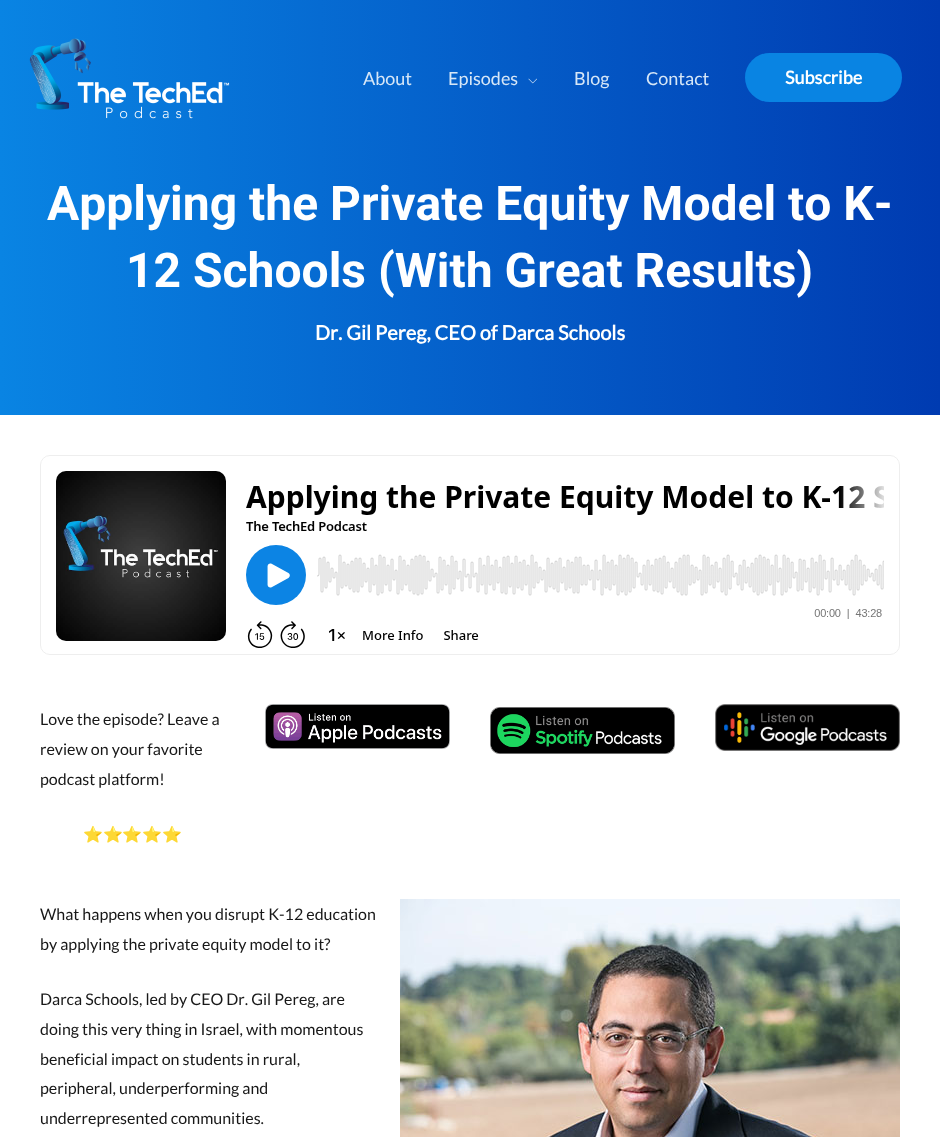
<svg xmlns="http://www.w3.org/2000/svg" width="940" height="1137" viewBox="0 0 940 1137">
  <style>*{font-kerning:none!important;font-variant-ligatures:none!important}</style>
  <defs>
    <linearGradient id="g1" gradientUnits="userSpaceOnUse" x1="0" y1="208" x2="940" y2="207"><stop offset="0" stop-color="#0984e3"/><stop offset="1" stop-color="#003bb1"/></linearGradient>
  </defs>
  <rect width="100%" height="100%" fill="#fff"/>
  <path d="M0 0h940v415H0z" fill="url(#g1)"/>
  <image x="29" y="38" width="201" height="81" href="img/1.png"/>
  <image x="528" y="78" width="9" height="6" href="img/2.png"/>
  <rect x="745" y="53" width="157" height="49" rx="24.5" fill="#0984e3"/>
  <image x="40" y="455" width="860" height="200" href="img/3.png"/>
  <image x="265" y="704" width="185" height="45" href="img/4.png"/>
  <image x="490" y="707" width="185" height="47" href="img/5.png"/>
  <image x="715" y="704" width="185" height="47" href="img/6.png"/>
  <image x="400" y="899" width="500" height="238" href="img/7.png"/>
  <g font-family="Lato" font-size="18" fill="#d7e7f7">
    <text x="363" y="85">About</text>
    <text x="448" y="85">Episodes</text>
    <text x="574" y="85">Blog</text>
    <text x="646" y="85">Contact</text>
  </g>
  <text x="785" y="84" font-family="Lato" font-size="18" font-weight="bold" fill="#fff">Subscribe</text>
  <g font-family="Roboto" font-size="48" font-weight="bold" fill="#fff">
    <text x="47" y="220">Applying the Private Equity Model to K-</text>
    <text x="126" y="287">12 Schools (With Great Results)</text>
  </g>
  <text x="315" y="340" font-family="Lato" font-size="20" font-weight="bold" fill="#fff">Dr. Gil Pereg, CEO of Darca Schools</text>
  <g font-family="Lato" font-size="16" fill="#181818">
    <text x="40" y="725">Love the episode? Leave a</text>
    <text x="40" y="755">review on your favorite</text>
    <text x="40" y="785">podcast platform!</text>
  </g>
  <text x="83" y="840" font-family="Noto Color Emoji" font-size="16" fill="#181818">⭐⭐⭐⭐⭐</text>
  <g font-family="Lato" font-size="16" fill="#181818">
    <text x="40" y="920">What happens when you disrupt K-12 education</text>
    <text x="40" y="950">by applying the private equity model to it?</text>
    <text x="40" y="1005">Darca Schools, led by CEO Dr. Gil Pereg, are</text>
    <text x="40" y="1035">doing this very thing in Israel, with momentous</text>
    <text x="40" y="1065">beneficial impact on students in rural,</text>
    <text x="40" y="1094">peripheral, underperforming and</text>
    <text x="40" y="1124">underrepresented communities.</text>
  </g>
</svg>
